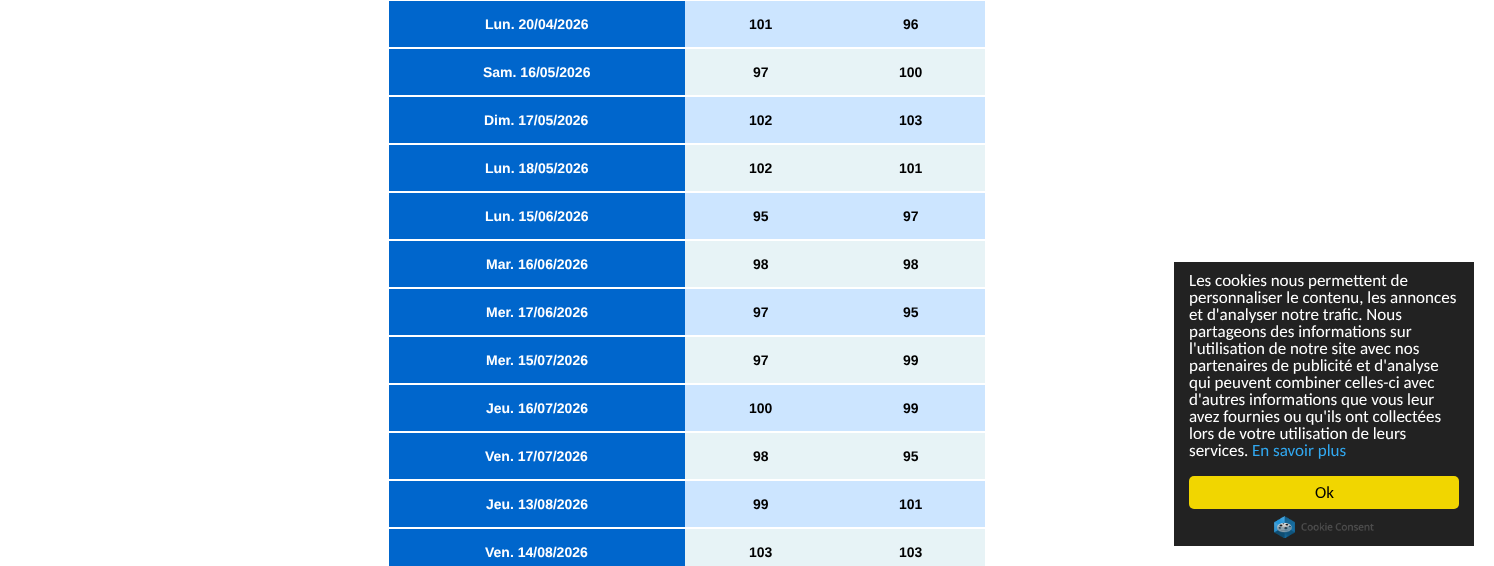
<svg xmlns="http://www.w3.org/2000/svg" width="1494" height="566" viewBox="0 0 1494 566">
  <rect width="100%" height="100%" fill="#fff"/>
  <path d="M685 1h300v46H685z" fill="#cce5ff"/>
  <path d="M389 1h296v46H389z" fill="#06c"/>
  <path d="M685 49h300v46H685z" fill="#e7f3f6"/>
  <path d="M389 49h296v46H389z" fill="#06c"/>
  <path d="M685 97h300v46H685z" fill="#cce5ff"/>
  <path d="M389 97h296v46H389z" fill="#06c"/>
  <path d="M685 145h300v46H685z" fill="#e7f3f6"/>
  <path d="M389 145h296v46H389z" fill="#06c"/>
  <path d="M685 193h300v46H685z" fill="#cce5ff"/>
  <path d="M389 193h296v46H389z" fill="#06c"/>
  <path d="M685 241h300v46H685z" fill="#e7f3f6"/>
  <path d="M389 241h296v46H389z" fill="#06c"/>
  <path d="M685 289h300v46H685z" fill="#cce5ff"/>
  <path d="M389 289h296v46H389z" fill="#06c"/>
  <path d="M685 337h300v46H685z" fill="#e7f3f6"/>
  <path d="M389 337h296v46H389z" fill="#06c"/>
  <path d="M685 385h300v46H685z" fill="#cce5ff"/>
  <path d="M389 385h296v46H389z" fill="#06c"/>
  <path d="M685 433h300v46H685z" fill="#e7f3f6"/>
  <path d="M389 433h296v46H389z" fill="#06c"/>
  <path d="M685 481h300v46H685z" fill="#cce5ff"/>
  <path d="M389 481h296v46H389z" fill="#06c"/>
  <path d="M685 529h300v37H685z" fill="#e7f3f6"/>
  <path d="M389 529h296v37H389z" fill="#06c"/>
  <path d="M1174 262h300v284H1174z" fill="#222"/>
  <rect x="1189" y="476" width="270" height="33" rx="5" fill="#f1d600"/>
  <image x="1274" y="516" width="100" height="22" href="img/1.png"/>
  <text x="485" y="29" font-family="Liberation Sans" font-size="14" font-weight="bold" fill="#fff">Lun. 20/04/2026</text>
  <g font-family="Liberation Sans" font-size="14" font-weight="bold" fill="#000">
    <text x="749" y="29">101</text>
    <text x="903" y="29">96</text>
  </g>
  <text x="483" y="77" font-family="Liberation Sans" font-size="14" font-weight="bold" fill="#fff">Sam. 16/05/2026</text>
  <g font-family="Liberation Sans" font-size="14" font-weight="bold" fill="#000">
    <text x="753" y="77">97</text>
    <text x="899" y="77">100</text>
  </g>
  <text x="484" y="125" font-family="Liberation Sans" font-size="14" font-weight="bold" fill="#fff">Dim. 17/05/2026</text>
  <g font-family="Liberation Sans" font-size="14" font-weight="bold" fill="#000">
    <text x="749" y="125">102</text>
    <text x="899" y="125">103</text>
  </g>
  <text x="485" y="173" font-family="Liberation Sans" font-size="14" font-weight="bold" fill="#fff">Lun. 18/05/2026</text>
  <g font-family="Liberation Sans" font-size="14" font-weight="bold" fill="#000">
    <text x="749" y="173">102</text>
    <text x="899" y="173">101</text>
  </g>
  <text x="485" y="221" font-family="Liberation Sans" font-size="14" font-weight="bold" fill="#fff">Lun. 15/06/2026</text>
  <g font-family="Liberation Sans" font-size="14" font-weight="bold" fill="#000">
    <text x="753" y="221">95</text>
    <text x="903" y="221">97</text>
  </g>
  <text x="486" y="269" font-family="Liberation Sans" font-size="14" font-weight="bold" fill="#fff">Mar. 16/06/2026</text>
  <g font-family="Liberation Sans" font-size="14" font-weight="bold" fill="#000">
    <text x="753" y="269">98</text>
    <text x="903" y="269">98</text>
  </g>
  <text x="486" y="317" font-family="Liberation Sans" font-size="14" font-weight="bold" fill="#fff">Mer. 17/06/2026</text>
  <g font-family="Liberation Sans" font-size="14" font-weight="bold" fill="#000">
    <text x="753" y="317">97</text>
    <text x="903" y="317">95</text>
  </g>
  <text x="486" y="365" font-family="Liberation Sans" font-size="14" font-weight="bold" fill="#fff">Mer. 15/07/2026</text>
  <g font-family="Liberation Sans" font-size="14" font-weight="bold" fill="#000">
    <text x="753" y="365">97</text>
    <text x="903" y="365">99</text>
  </g>
  <text x="486" y="413" font-family="Liberation Sans" font-size="14" font-weight="bold" fill="#fff">Jeu. 16/07/2026</text>
  <g font-family="Liberation Sans" font-size="14" font-weight="bold" fill="#000">
    <text x="749" y="413">100</text>
    <text x="903" y="413">99</text>
  </g>
  <text x="485" y="461" font-family="Liberation Sans" font-size="14" font-weight="bold" fill="#fff">Ven. 17/07/2026</text>
  <g font-family="Liberation Sans" font-size="14" font-weight="bold" fill="#000">
    <text x="753" y="461">98</text>
    <text x="903" y="461">95</text>
  </g>
  <text x="486" y="509" font-family="Liberation Sans" font-size="14" font-weight="bold" fill="#fff">Jeu. 13/08/2026</text>
  <g font-family="Liberation Sans" font-size="14" font-weight="bold" fill="#000">
    <text x="753" y="509">99</text>
    <text x="899" y="509">101</text>
  </g>
  <text x="485" y="557" font-family="Liberation Sans" font-size="14" font-weight="bold" fill="#fff">Ven. 14/08/2026</text>
  <g font-family="Liberation Sans" font-size="14" font-weight="bold" fill="#000">
    <text x="749" y="557">103</text>
    <text x="899" y="557">103</text>
  </g>
  <g font-family="Carlito" font-size="17" fill="#fff">
    <text x="1189" y="286">Les cookies nous permettent de</text>
    <text x="1189" y="303">personnaliser le contenu, les annonces</text>
    <text x="1189" y="320">et d'analyser notre trafic. Nous</text>
    <text x="1189" y="337">partageons des informations sur</text>
    <text x="1189" y="354">l'utilisation de notre site avec nos</text>
    <text x="1189" y="371">partenaires de publicité et d'analyse</text>
    <text x="1189" y="388">qui peuvent combiner celles-ci avec</text>
    <text x="1189" y="405">d'autres informations que vous leur</text>
    <text x="1189" y="422">avez fournies ou qu'ils ont collectées</text>
    <text x="1189" y="439">lors de votre utilisation de leurs</text>
    <text x="1189" y="456">services.</text>
  </g>
  <text x="1252" y="456" font-family="Carlito" font-size="17" fill="#31a8f0">En savoir plus</text>
  <text x="1315" y="498" font-family="Carlito" font-size="17" fill="#000">Ok</text>
</svg>
